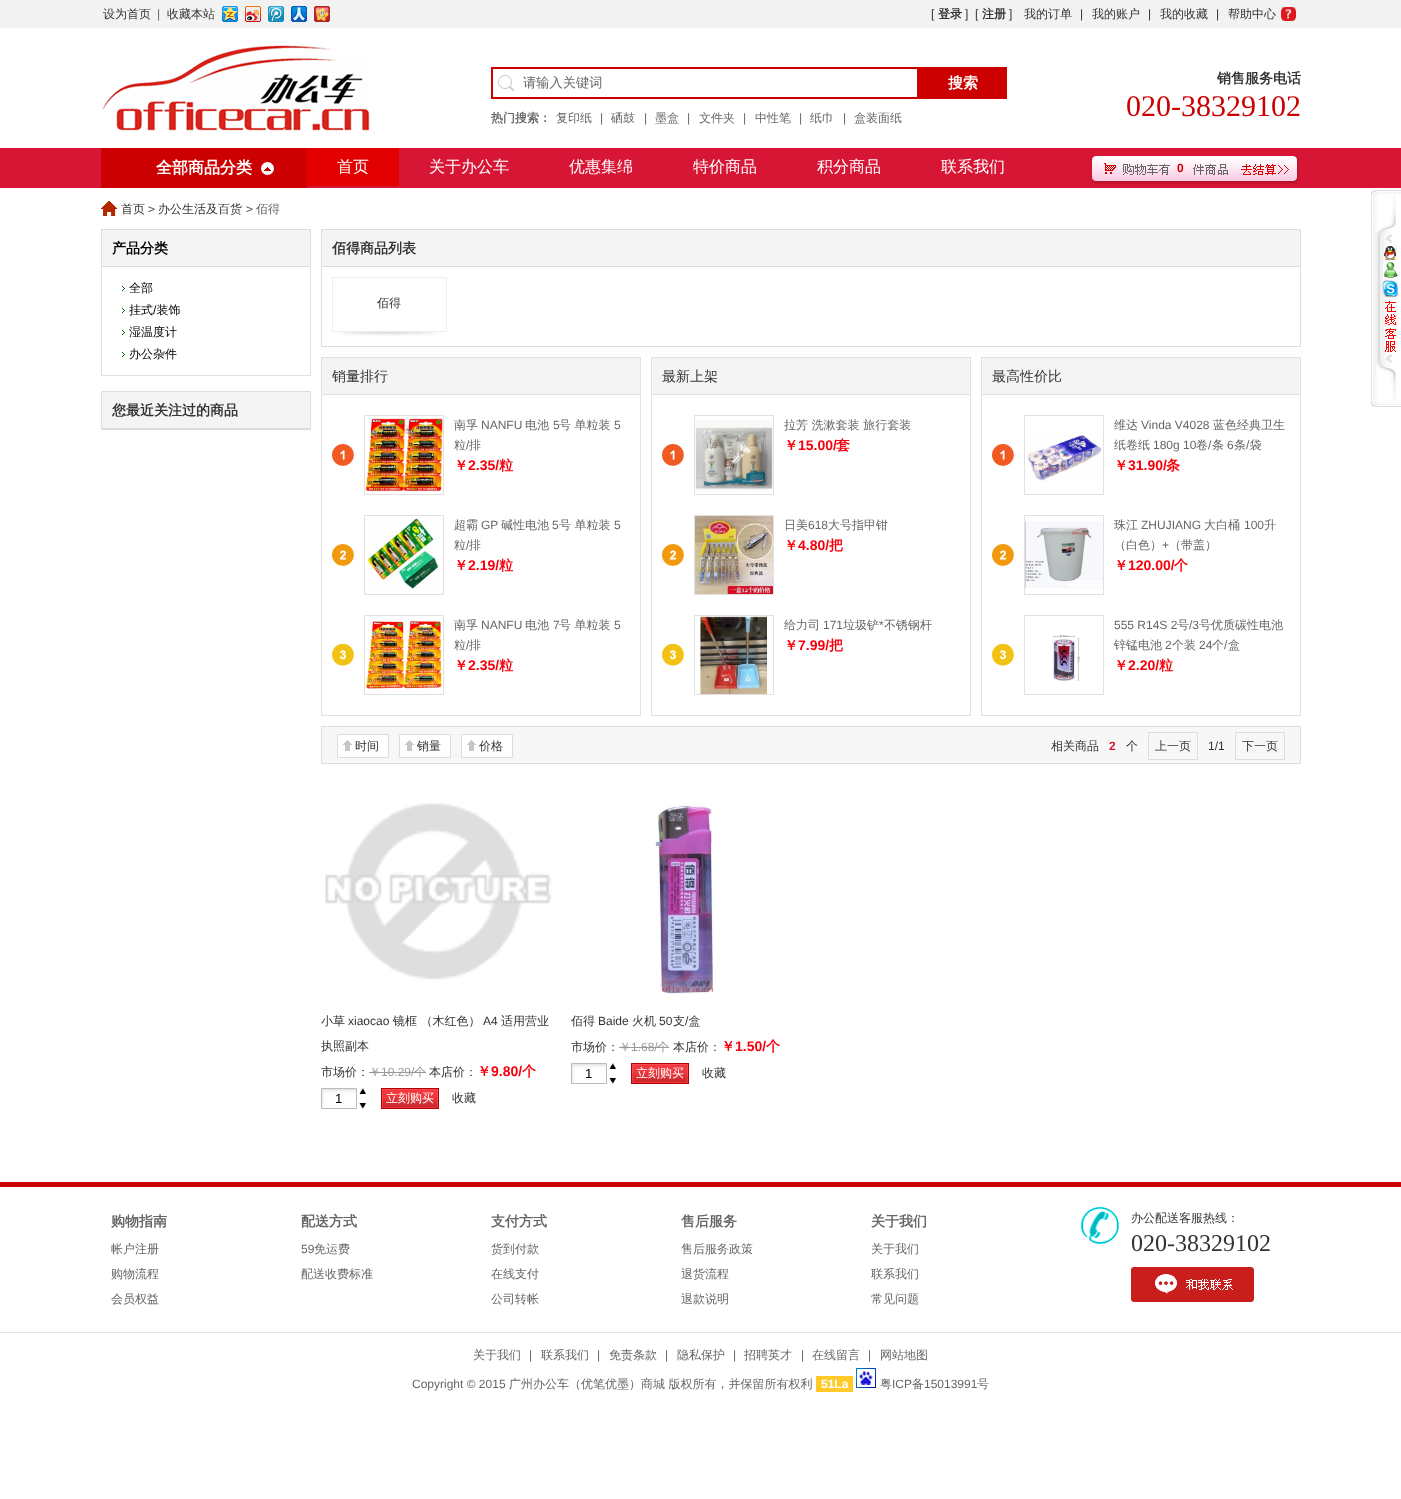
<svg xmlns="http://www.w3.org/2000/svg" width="1401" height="1499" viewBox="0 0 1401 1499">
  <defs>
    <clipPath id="clip1"><path d="M784 615h176v20H784z"/></clipPath>
    <clipPath id="clip2"><path d="M1114 415h176v40H1114z"/></clipPath>
    <clipPath id="clip3"><path d="M1114 515h176v40H1114z"/></clipPath>
    <clipPath id="clip4"><path d="M321 1009h230v50H321z"/></clipPath>
  </defs>
  <rect width="100%" height="100%" fill="#fff"/>
  <path d="M0 0h1401v28H0z" fill="#f2f2f2"/>
  <image x="222" y="6" width="16" height="16" href="img/1.png"/>
  <image x="245" y="6" width="16" height="16" href="img/2.png"/>
  <image x="268" y="6" width="16" height="16" href="img/3.png"/>
  <image x="291" y="6" width="16" height="16" href="img/4.png"/>
  <image x="314" y="6" width="16" height="16" href="img/5.png"/>
  <image x="1281" y="7" width="15" height="14" href="img/6.png"/>
  <image x="102" y="45" width="268" height="86" href="img/7.png"/>
  <image x="498" y="75" width="16" height="16" href="img/8.png"/>
  <path d="M492 68h426v30H492z" fill="none" stroke="#c00" stroke-width="2"/>
  <path d="M919 67h88v32H919z" fill="#c00"/>
  <path d="M0 148h1401v40H0z" fill="#d71635"/>
  <path d="M101 148h206v40H101z" fill="#c00"/>
  <image x="261" y="162" width="13" height="13" href="img/9.png"/>
  <path d="M307 148h92v38H307z" fill="#e30000"/>
  <image x="1091" y="156" width="209" height="29" href="img/10.png"/>
  <image x="101" y="201" width="17" height="15" href="img/11.png"/>
  <path d="M101.5 229.5h209v37H101.5z" fill="#f4f4f4" stroke="#dedddd"/>
  <path d="M310 267h1v109H310z" fill="#e1e1e1"/>
  <path d="M101 375h210v1H101z" fill="#e1e1e1"/>
  <path d="M101 267h1v109H101z" fill="#e1e1e1"/>
  <image x="122" y="286" width="3" height="5" href="img/12.png"/>
  <image x="122" y="308" width="3" height="5" href="img/12.png"/>
  <image x="122" y="330" width="3" height="5" href="img/12.png"/>
  <image x="122" y="352" width="3" height="5" href="img/12.png"/>
  <path d="M101.5 391.5h209v38H101.5z" fill="none" stroke="#ddd"/>
  <path d="M102 392h208v36H102z" fill="#f4f4f4"/>
  <path d="M102 428h208v1H102z" fill="#dedddd"/>
  <path d="M321.5 229.5h979v117H321.5z" fill="none" stroke="#ddd"/>
  <path d="M322 230h978v36H322z" fill="#f4f4f4"/>
  <path d="M322 266h978v1H322z" fill="#dedddd"/>
  <image x="332" y="277" width="115" height="59" href="img/13.png"/>
  <path d="M321.5 357.5h319v37H321.5z" fill="#f4f4f4" stroke="#e1e1e1"/>
  <path d="M640 395h1v321H640z" fill="#e1e1e1"/>
  <path d="M321 715h320v1H321z" fill="#e1e1e1"/>
  <path d="M321 395h1v321H321z" fill="#e1e1e1"/>
  <image x="332" y="444" width="22" height="22" href="img/14.png"/>
  <path d="M364.5 415.5h79v79H364.5z" fill="none" stroke="#e1e1e1"/>
  <image x="365" y="418" width="78" height="74" href="img/15.png"/>
  <image x="332" y="544" width="22" height="22" href="img/16.png"/>
  <path d="M364.5 515.5h79v79H364.5z" fill="none" stroke="#e1e1e1"/>
  <image x="367" y="518" width="72" height="71" href="img/17.png"/>
  <image x="332" y="644" width="22" height="22" href="img/18.png"/>
  <path d="M364.5 615.5h79v79H364.5z" fill="none" stroke="#e1e1e1"/>
  <image x="366" y="620" width="76" height="69" href="img/19.png"/>
  <path d="M651.5 357.5h319v37H651.5z" fill="#f4f4f4" stroke="#e1e1e1"/>
  <path d="M970 395h1v321H970z" fill="#e1e1e1"/>
  <path d="M651 715h320v1H651z" fill="#e1e1e1"/>
  <path d="M651 395h1v321H651z" fill="#e1e1e1"/>
  <path d="M694.5 415.5h79v79H694.5z" fill="none" stroke="#e1e1e1"/>
  <image x="695" y="420" width="78" height="70" href="img/20.png"/>
  <image x="662" y="444" width="22" height="22" href="img/14.png"/>
  <path d="M694.5 515.5h79v79H694.5z" fill="none" stroke="#e1e1e1"/>
  <image x="695" y="516" width="78" height="78" href="img/21.png"/>
  <image x="662" y="544" width="22" height="22" href="img/16.png"/>
  <path d="M694.5 615.5h79v79H694.5z" fill="none" stroke="#e1e1e1"/>
  <image x="700" y="616" width="67" height="78" href="img/22.png"/>
  <image x="662" y="644" width="22" height="22" href="img/18.png"/>
  <path d="M981.5 357.5h319v37H981.5z" fill="#f4f4f4" stroke="#e1e1e1"/>
  <path d="M1300 395h1v321H1300z" fill="#e1e1e1"/>
  <path d="M981 715h320v1H981z" fill="#e1e1e1"/>
  <path d="M981 395h1v321H981z" fill="#e1e1e1"/>
  <image x="992" y="444" width="22" height="22" href="img/14.png"/>
  <path d="M1024.5 415.5h79v79H1024.5z" fill="none" stroke="#e1e1e1"/>
  <image x="1027" y="435" width="75" height="46" href="img/23.png"/>
  <image x="992" y="544" width="22" height="22" href="img/16.png"/>
  <path d="M1024.5 515.5h79v79H1024.5z" fill="none" stroke="#e1e1e1"/>
  <image x="1025" y="521" width="78" height="68" href="img/24.png"/>
  <image x="992" y="644" width="22" height="22" href="img/18.png"/>
  <path d="M1024.5 615.5h79v79H1024.5z" fill="none" stroke="#e1e1e1"/>
  <image x="1052" y="635" width="28" height="46" href="img/25.png"/>
  <path d="M321.5 726.5h979v37H321.5z" fill="#f7f7f7" stroke="#ddd"/>
  <path d="M338 735h50v22H338z" fill="#fff"/>
  <image x="343" y="740" width="9" height="11" href="img/26.png"/>
  <path d="M337.5 734.5h51v23H337.5z" fill="none" stroke="#ddd"/>
  <path d="M400 735h50v22H400z" fill="#fff"/>
  <image x="405" y="740" width="9" height="11" href="img/26.png"/>
  <path d="M399.5 734.5h51v23H399.5z" fill="none" stroke="#ddd"/>
  <path d="M462 735h50v22H462z" fill="#fff"/>
  <image x="467" y="740" width="9" height="11" href="img/26.png"/>
  <path d="M461.5 734.5h51v23H461.5z" fill="none" stroke="#ddd"/>
  <path d="M1148.5 732.5h49v27H1148.5z" fill="none" stroke="#ddd"/>
  <path d="M1235.5 732.5h49v27H1235.5z" fill="none" stroke="#ddd"/>
  <image x="325" y="803" width="226" height="177" href="img/27.png"/>
  <path d="M369 1072h57v1H369z" fill="#999"/>
  <image x="359" y="1088" width="7" height="6" href="img/28.png"/>
  <image x="322" y="1089" width="34" height="19" href="img/29.png"/>
  <path d="M321.5 1088.5h35v20H321.5z" fill="none" stroke="#bababa"/>
  <image x="359" y="1103" width="7" height="6" href="img/30.png"/>
  <image x="381" y="1088" width="58" height="21" href="img/31.png"/>
  <image x="654" y="805" width="60" height="189" href="img/32.png"/>
  <path d="M619 1047h50v1H619z" fill="#999"/>
  <image x="609" y="1063" width="7" height="6" href="img/28.png"/>
  <image x="572" y="1064" width="34" height="19" href="img/29.png"/>
  <path d="M571.5 1063.5h35v20H571.5z" fill="none" stroke="#bababa"/>
  <image x="609" y="1078" width="7" height="6" href="img/30.png"/>
  <image x="631" y="1063" width="58" height="21" href="img/31.png"/>
  <image x="1371" y="190" width="30" height="217" href="img/33.png"/>
  <path d="M0 1182h1401v5H0z" fill="#c00"/>
  <path d="M0 1332h1401v1H0z" fill="#e5e5e5"/>
  <image x="1081" y="1207" width="38" height="37" href="img/34.png"/>
  <image x="1131" y="1267" width="123" height="35" href="img/35.png"/>
  <path d="M816 1376h37v16H816z" fill="#ffca28"/>
  <image x="856" y="1368" width="20" height="20" href="img/36.png"/>
  <text x="103" y="18" font-family="WenQuanYi Zen Hei" font-size="12" font-weight="500" fill="#333">设为首页</text>
  <text x="157" y="18" font-family="Liberation Sans" font-size="12" fill="#666">|</text>
  <text x="167" y="18" font-family="WenQuanYi Zen Hei" font-size="12" font-weight="500" fill="#333">收藏本站</text>
  <text x="931" y="18" font-family="Liberation Sans" font-size="12" fill="#333">[</text>
  <text x="938" y="18" font-family="WenQuanYi Zen Hei" font-size="12" font-weight="bold" fill="#333">登录</text>
  <text x="965" y="18" font-family="Liberation Sans" font-size="12" fill="#333" xml:space="preserve">]  [</text>
  <text x="982" y="18" font-family="WenQuanYi Zen Hei" font-size="12" font-weight="bold" fill="#333">注册</text>
  <text x="1009" y="18" font-family="Liberation Sans" font-size="12" fill="#333">]</text>
  <text x="1024" y="18" font-family="WenQuanYi Zen Hei" font-size="12" font-weight="500" fill="#333">我的订单</text>
  <text x="1080" y="18" font-family="Liberation Sans" font-size="12" fill="#333">|</text>
  <text x="1092" y="18" font-family="WenQuanYi Zen Hei" font-size="12" font-weight="500" fill="#333">我的账户</text>
  <text x="1148" y="18" font-family="Liberation Sans" font-size="12" fill="#333">|</text>
  <text x="1160" y="18" font-family="WenQuanYi Zen Hei" font-size="12" font-weight="500" fill="#333">我的收藏</text>
  <text x="1216" y="18" font-family="Liberation Sans" font-size="12" fill="#333">|</text>
  <text x="1228" y="18" font-family="WenQuanYi Zen Hei" font-size="12" font-weight="500" fill="#333">帮助中心</text>
  <text x="523" y="87" font-family="WenQuanYi Zen Hei" font-size="13.25" font-weight="500" fill="#666">请输入关键词</text>
  <text x="948" y="88" font-family="WenQuanYi Zen Hei" font-size="15" font-weight="bold" fill="#fff">搜索</text>
  <text x="491" y="122" font-family="WenQuanYi Zen Hei" font-size="12" font-weight="bold" fill="#666">热门搜索：</text>
  <text x="556" y="122" font-family="WenQuanYi Zen Hei" font-size="12" font-weight="500" fill="#666">复印纸</text>
  <text x="600" y="122" font-family="Liberation Sans" font-size="12" fill="#666">|</text>
  <text x="611" y="122" font-family="WenQuanYi Zen Hei" font-size="12" font-weight="500" fill="#666">硒鼓</text>
  <text x="644" y="122" font-family="Liberation Sans" font-size="12" fill="#666">|</text>
  <text x="655" y="122" font-family="WenQuanYi Zen Hei" font-size="12" font-weight="500" fill="#666">墨盒</text>
  <text x="687" y="122" font-family="Liberation Sans" font-size="12" fill="#666">|</text>
  <text x="699" y="122" font-family="WenQuanYi Zen Hei" font-size="12" font-weight="500" fill="#666">文件夹</text>
  <text x="743" y="122" font-family="Liberation Sans" font-size="12" fill="#666">|</text>
  <text x="755" y="122" font-family="WenQuanYi Zen Hei" font-size="12" font-weight="500" fill="#666">中性笔</text>
  <text x="799" y="122" font-family="Liberation Sans" font-size="12" fill="#666">|</text>
  <text x="810" y="122" font-family="WenQuanYi Zen Hei" font-size="12" font-weight="500" fill="#666">纸巾</text>
  <text x="843" y="122" font-family="Liberation Sans" font-size="12" fill="#666">|</text>
  <text x="854" y="122" font-family="WenQuanYi Zen Hei" font-size="12" font-weight="500" fill="#666">盒装面纸</text>
  <text x="1217" y="83" font-family="WenQuanYi Zen Hei" font-size="14" font-weight="bold" fill="#333">销售服务电话</text>
  <text x="1126" y="116" font-family="Liberation Serif" font-size="30" fill="#c00">020-38329102</text>
  <text x="156" y="173" font-family="WenQuanYi Zen Hei" font-size="16" font-weight="bold" fill="#fff">全部商品分类</text>
  <g font-family="WenQuanYi Zen Hei" font-size="16" font-weight="500" fill="#fff">
    <text x="337" y="172">首页</text>
    <text x="429" y="172">关于办公车</text>
    <text x="569" y="172">优惠集绵</text>
    <text x="693" y="172">特价商品</text>
    <text x="817" y="172">积分商品</text>
    <text x="941" y="172">联系我们</text>
  </g>
  <text x="1177" y="172" font-family="Liberation Sans" font-size="12" font-weight="bold" fill="#c00">0</text>
  <text x="121" y="213" font-family="WenQuanYi Zen Hei" font-size="12" font-weight="500" fill="#333">首页</text>
  <text x="148" y="213" font-family="DejaVu Sans Mono" font-size="12" fill="#666">&gt;</text>
  <text x="158" y="213" font-family="WenQuanYi Zen Hei" font-size="12" font-weight="500" fill="#333">办公生活及百货</text>
  <text x="246" y="213" font-family="DejaVu Sans Mono" font-size="12" fill="#666">&gt;</text>
  <text x="256" y="213" font-family="WenQuanYi Zen Hei" font-size="12" font-weight="500" fill="#666">佰得</text>
  <text x="112" y="253" font-family="WenQuanYi Zen Hei" font-size="14" font-weight="bold" fill="#000">产品分类</text>
  <g font-family="WenQuanYi Zen Hei" font-size="12" font-weight="500" fill="#000">
    <text x="129" y="292">全部</text>
    <text x="129" y="314">挂式 装饰</text>
  </g>
  <text x="153" y="314" font-family="Liberation Sans" font-size="12" fill="#000">/</text>
  <g font-family="WenQuanYi Zen Hei" font-size="12" font-weight="500" fill="#000">
    <text x="129" y="336">湿温度计</text>
    <text x="129" y="358">办公杂件</text>
  </g>
  <g font-family="WenQuanYi Zen Hei" font-size="14" font-weight="bold" fill="#333">
    <text x="112" y="415">您最近关注过的商品</text>
    <text x="332" y="253">佰得商品列表</text>
  </g>
  <text x="377" y="307" font-family="WenQuanYi Zen Hei" font-size="12" font-weight="500" fill="#333">佰得</text>
  <text x="332" y="381" font-family="WenQuanYi Zen Hei" font-size="14" font-weight="500" fill="#333">销量排行</text>
  <text x="454" y="429" font-family="WenQuanYi Zen Hei" font-size="12" font-weight="500" fill="#666">南孚</text>
  <text x="481" y="429" font-family="Liberation Sans" font-size="12" fill="#666">NANFU</text>
  <text x="525" y="429" font-family="WenQuanYi Zen Hei" font-size="12" font-weight="500" fill="#666">电池</text>
  <text x="553" y="429" font-family="Liberation Sans" font-size="12" fill="#666">5</text>
  <text x="559" y="429" font-family="WenQuanYi Zen Hei" font-size="12" font-weight="500" fill="#666">号 单粒装</text>
  <text x="614" y="429" font-family="Liberation Sans" font-size="12" fill="#666">5</text>
  <text x="454" y="449" font-family="WenQuanYi Zen Hei" font-size="12" font-weight="500" fill="#666">粒</text>
  <text x="466" y="449" font-family="Liberation Sans" font-size="12" fill="#666">/</text>
  <text x="469" y="449" font-family="WenQuanYi Zen Hei" font-size="12" font-weight="500" fill="#666">排</text>
  <text x="454" y="470" font-family="WenQuanYi Zen Hei" font-size="14" font-weight="bold" fill="#f6010b">￥</text>
  <text x="468" y="470" font-family="Liberation Sans" font-size="14" font-weight="bold" fill="#f6010b">2.35/</text>
  <text x="499" y="470" font-family="WenQuanYi Zen Hei" font-size="14" font-weight="bold" fill="#f6010b">粒</text>
  <text x="454" y="529" font-family="WenQuanYi Zen Hei" font-size="12" font-weight="500" fill="#666">超霸</text>
  <text x="481" y="529" font-family="Liberation Sans" font-size="12" fill="#666">GP</text>
  <text x="501" y="529" font-family="WenQuanYi Zen Hei" font-size="12" font-weight="500" fill="#666">碱性电池</text>
  <text x="552" y="529" font-family="Liberation Sans" font-size="12" fill="#666">5</text>
  <text x="559" y="529" font-family="WenQuanYi Zen Hei" font-size="12" font-weight="500" fill="#666">号 单粒装</text>
  <text x="614" y="529" font-family="Liberation Sans" font-size="12" fill="#666">5</text>
  <text x="454" y="549" font-family="WenQuanYi Zen Hei" font-size="12" font-weight="500" fill="#666">粒</text>
  <text x="466" y="549" font-family="Liberation Sans" font-size="12" fill="#666">/</text>
  <text x="469" y="549" font-family="WenQuanYi Zen Hei" font-size="12" font-weight="500" fill="#666">排</text>
  <text x="454" y="570" font-family="WenQuanYi Zen Hei" font-size="14" font-weight="bold" fill="#f6010b">￥</text>
  <text x="468" y="570" font-family="Liberation Sans" font-size="14" font-weight="bold" fill="#f6010b">2.19/</text>
  <text x="499" y="570" font-family="WenQuanYi Zen Hei" font-size="14" font-weight="bold" fill="#f6010b">粒</text>
  <text x="454" y="629" font-family="WenQuanYi Zen Hei" font-size="12" font-weight="500" fill="#666">南孚</text>
  <text x="481" y="629" font-family="Liberation Sans" font-size="12" fill="#666">NANFU</text>
  <text x="525" y="629" font-family="WenQuanYi Zen Hei" font-size="12" font-weight="500" fill="#666">电池</text>
  <text x="553" y="629" font-family="Liberation Sans" font-size="12" fill="#666">7</text>
  <text x="559" y="629" font-family="WenQuanYi Zen Hei" font-size="12" font-weight="500" fill="#666">号 单粒装</text>
  <text x="614" y="629" font-family="Liberation Sans" font-size="12" fill="#666">5</text>
  <text x="454" y="649" font-family="WenQuanYi Zen Hei" font-size="12" font-weight="500" fill="#666">粒</text>
  <text x="466" y="649" font-family="Liberation Sans" font-size="12" fill="#666">/</text>
  <text x="469" y="649" font-family="WenQuanYi Zen Hei" font-size="12" font-weight="500" fill="#666">排</text>
  <text x="454" y="670" font-family="WenQuanYi Zen Hei" font-size="14" font-weight="bold" fill="#f6010b">￥</text>
  <text x="468" y="670" font-family="Liberation Sans" font-size="14" font-weight="bold" fill="#f6010b">2.35/</text>
  <text x="499" y="670" font-family="WenQuanYi Zen Hei" font-size="14" font-weight="bold" fill="#f6010b">粒</text>
  <text x="662" y="381" font-family="WenQuanYi Zen Hei" font-size="14" font-weight="500" fill="#333">最新上架</text>
  <text x="784" y="429" font-family="WenQuanYi Zen Hei" font-size="12" font-weight="500" fill="#666">拉芳 洗漱套装 旅行套装</text>
  <text x="784" y="450" font-family="WenQuanYi Zen Hei" font-size="14" font-weight="bold" fill="#f6010b">￥</text>
  <text x="798" y="450" font-family="Liberation Sans" font-size="14" font-weight="bold" fill="#f6010b">15.00/</text>
  <text x="836" y="450" font-family="WenQuanYi Zen Hei" font-size="14" font-weight="bold" fill="#f6010b">套</text>
  <text x="784" y="529" font-family="WenQuanYi Zen Hei" font-size="12" font-weight="500" fill="#666">日美</text>
  <text x="808" y="529" font-family="Liberation Sans" font-size="12" fill="#666">618</text>
  <text x="828" y="529" font-family="WenQuanYi Zen Hei" font-size="12" font-weight="500" fill="#666">大号指甲钳</text>
  <text x="784" y="550" font-family="WenQuanYi Zen Hei" font-size="14" font-weight="bold" fill="#f6010b">￥</text>
  <text x="798" y="550" font-family="Liberation Sans" font-size="14" font-weight="bold" fill="#f6010b">4.80/</text>
  <text x="829" y="550" font-family="WenQuanYi Zen Hei" font-size="14" font-weight="bold" fill="#f6010b">把</text>
  <g clip-path="url(#clip1)">
    <text x="784" y="629" font-family="WenQuanYi Zen Hei" font-size="12" font-weight="500" fill="#666">给力司</text>
  </g>
  <text x="823" y="629" font-family="Liberation Sans" font-size="12" fill="#666">171</text>
  <text x="843" y="629" font-family="WenQuanYi Zen Hei" font-size="12" font-weight="500" fill="#666">垃圾铲</text>
  <text x="879" y="629" font-family="Liberation Sans" font-size="12" fill="#666">*</text>
  <text x="884" y="629" font-family="WenQuanYi Zen Hei" font-size="12" font-weight="500" fill="#666">不锈钢杆</text>
  <text x="784" y="650" font-family="WenQuanYi Zen Hei" font-size="14" font-weight="bold" fill="#f6010b">￥</text>
  <text x="798" y="650" font-family="Liberation Sans" font-size="14" font-weight="bold" fill="#f6010b">7.99/</text>
  <text x="829" y="650" font-family="WenQuanYi Zen Hei" font-size="14" font-weight="bold" fill="#f6010b">把</text>
  <text x="992" y="381" font-family="WenQuanYi Zen Hei" font-size="14" font-weight="500" fill="#333">最高性价比</text>
  <text x="1114" y="429" font-family="WenQuanYi Zen Hei" font-size="12" font-weight="500" fill="#666">维达</text>
  <text x="1141" y="429" font-family="Liberation Sans" font-size="12" fill="#666">Vinda V4028</text>
  <text x="1213" y="429" font-family="WenQuanYi Zen Hei" font-size="12" font-weight="500" fill="#666">蓝色经典卫生</text>
  <g clip-path="url(#clip2)">
    <text x="1114" y="449" font-family="WenQuanYi Zen Hei" font-size="12" font-weight="500" fill="#666">纸卷纸</text>
  </g>
  <text x="1153" y="449" font-family="Liberation Sans" font-size="12" fill="#666">180g 10</text>
  <text x="1196" y="449" font-family="WenQuanYi Zen Hei" font-size="12" font-weight="500" fill="#666">卷</text>
  <text x="1208" y="449" font-family="Liberation Sans" font-size="12" fill="#666">/</text>
  <text x="1212" y="449" font-family="WenQuanYi Zen Hei" font-size="12" font-weight="500" fill="#666">条</text>
  <text x="1227" y="449" font-family="Liberation Sans" font-size="12" fill="#666">6</text>
  <text x="1234" y="449" font-family="WenQuanYi Zen Hei" font-size="12" font-weight="500" fill="#666">条 袋</text>
  <text x="1246" y="449" font-family="Liberation Sans" font-size="12" fill="#666">/</text>
  <text x="1114" y="470" font-family="WenQuanYi Zen Hei" font-size="14" font-weight="bold" fill="#f6010b">￥</text>
  <text x="1128" y="470" font-family="Liberation Sans" font-size="14" font-weight="bold" fill="#f6010b">31.90/</text>
  <text x="1166" y="470" font-family="WenQuanYi Zen Hei" font-size="14" font-weight="bold" fill="#f6010b">条</text>
  <g clip-path="url(#clip3)">
    <text x="1114" y="529" font-family="WenQuanYi Zen Hei" font-size="12" font-weight="500" fill="#666">珠江</text>
  </g>
  <text x="1141" y="529" font-family="Liberation Sans" font-size="12" fill="#666">ZHUJIANG</text>
  <text x="1204" y="529" font-family="WenQuanYi Zen Hei" font-size="12" font-weight="500" fill="#666">大白桶</text>
  <text x="1244" y="529" font-family="Liberation Sans" font-size="12" fill="#666">100</text>
  <g font-family="WenQuanYi Zen Hei" font-size="12" font-weight="500" fill="#666">
    <text x="1264" y="529">升</text>
    <text x="1114" y="549">（白色）</text>
  </g>
  <text x="1162" y="549" font-family="Liberation Sans" font-size="12" fill="#666">+</text>
  <text x="1169" y="549" font-family="WenQuanYi Zen Hei" font-size="12" font-weight="500" fill="#666">（带盖）</text>
  <text x="1114" y="570" font-family="WenQuanYi Zen Hei" font-size="14" font-weight="bold" fill="#f6010b">￥</text>
  <text x="1128" y="570" font-family="Liberation Sans" font-size="14" font-weight="bold" fill="#f6010b">120.00/</text>
  <text x="1174" y="570" font-family="WenQuanYi Zen Hei" font-size="14" font-weight="bold" fill="#f6010b">个</text>
  <text x="1114" y="629" font-family="Liberation Sans" font-size="12" fill="#666">555 R14S 2</text>
  <text x="1177" y="629" font-family="WenQuanYi Zen Hei" font-size="12" font-weight="500" fill="#666">号</text>
  <text x="1189" y="629" font-family="Liberation Sans" font-size="12" fill="#666">/3</text>
  <g font-family="WenQuanYi Zen Hei" font-size="12" font-weight="500" fill="#666">
    <text x="1199" y="629">号优质碳性电池</text>
    <text x="1114" y="649">锌锰电池</text>
  </g>
  <text x="1165" y="649" font-family="Liberation Sans" font-size="12" fill="#666">2</text>
  <text x="1172" y="649" font-family="WenQuanYi Zen Hei" font-size="12" font-weight="500" fill="#666">个装</text>
  <text x="1199" y="649" font-family="Liberation Sans" font-size="12" fill="#666">24</text>
  <text x="1212" y="649" font-family="WenQuanYi Zen Hei" font-size="12" font-weight="500" fill="#666">个</text>
  <text x="1224" y="649" font-family="Liberation Sans" font-size="12" fill="#666">/</text>
  <text x="1228" y="649" font-family="WenQuanYi Zen Hei" font-size="12" font-weight="500" fill="#666">盒</text>
  <text x="1114" y="670" font-family="WenQuanYi Zen Hei" font-size="14" font-weight="bold" fill="#f6010b">￥</text>
  <text x="1128" y="670" font-family="Liberation Sans" font-size="14" font-weight="bold" fill="#f6010b">2.20/</text>
  <text x="1159" y="670" font-family="WenQuanYi Zen Hei" font-size="14" font-weight="bold" fill="#f6010b">粒</text>
  <g font-family="WenQuanYi Zen Hei" font-size="12" font-weight="500" fill="#333">
    <text x="355" y="750">时间</text>
    <text x="417" y="750">销量</text>
    <text x="479" y="750">价格</text>
    <text x="1051" y="750">相关商品</text>
  </g>
  <text x="1109" y="750" font-family="Liberation Sans" font-size="12" font-weight="bold" fill="#d71635">2</text>
  <g font-family="WenQuanYi Zen Hei" font-size="12" font-weight="500" fill="#333">
    <text x="1126" y="750">个</text>
    <text x="1155" y="750">上一页</text>
  </g>
  <text x="1208" y="750" font-family="Liberation Sans" font-size="12" fill="#333">1/1</text>
  <g font-family="WenQuanYi Zen Hei" font-size="12" font-weight="500" fill="#333">
    <text x="1242" y="750">下一页</text>
    <text x="321" y="1025">小草</text>
  </g>
  <text x="348" y="1025" font-family="Liberation Sans" font-size="12" fill="#333">xiaocao</text>
  <text x="393" y="1025" font-family="WenQuanYi Zen Hei" font-size="12" font-weight="500" fill="#333">镜框 （木红色）</text>
  <text x="483" y="1025" font-family="Liberation Sans" font-size="12" fill="#333">A4</text>
  <text x="501" y="1025" font-family="WenQuanYi Zen Hei" font-size="12" font-weight="500" fill="#333">适用营业</text>
  <g clip-path="url(#clip4)">
    <text x="321" y="1050" font-family="WenQuanYi Zen Hei" font-size="12" font-weight="500" fill="#333">执照副本</text>
  </g>
  <text x="321" y="1076" font-family="WenQuanYi Zen Hei" font-size="12" font-weight="500" fill="#333">市场价：</text>
  <text x="369" y="1076" font-family="WenQuanYi Zen Hei" font-size="12" font-weight="500" fill="#999">￥</text>
  <text x="381" y="1076" font-family="Liberation Sans" font-size="12" fill="#999">10.29/</text>
  <text x="414" y="1076" font-family="WenQuanYi Zen Hei" font-size="12" font-weight="500" fill="#999">个</text>
  <text x="429" y="1076" font-family="WenQuanYi Zen Hei" font-size="12" font-weight="500" fill="#333">本店价：</text>
  <text x="477" y="1076" font-family="WenQuanYi Zen Hei" font-size="14" font-weight="bold" fill="#f6010b">￥</text>
  <text x="491" y="1076" font-family="Liberation Sans" font-size="14" font-weight="bold" fill="#f6010b">9.80/</text>
  <text x="522" y="1076" font-family="WenQuanYi Zen Hei" font-size="14" font-weight="bold" fill="#f6010b">个</text>
  <text x="335" y="1103" font-family="Liberation Sans" font-size="13.25" fill="#000">1</text>
  <text x="386" y="1102" font-family="WenQuanYi Zen Hei" font-size="12" font-weight="500" fill="#fff">立刻购买</text>
  <g font-family="WenQuanYi Zen Hei" font-size="12" font-weight="500" fill="#333">
    <text x="452" y="1102">收藏</text>
    <text x="571" y="1025">佰得</text>
  </g>
  <text x="598" y="1025" font-family="Liberation Sans" font-size="12" fill="#333">Baide</text>
  <text x="632" y="1025" font-family="WenQuanYi Zen Hei" font-size="12" font-weight="500" fill="#333">火机</text>
  <text x="659" y="1025" font-family="Liberation Sans" font-size="12" fill="#333">50</text>
  <text x="673" y="1025" font-family="WenQuanYi Zen Hei" font-size="12" font-weight="500" fill="#333">支 盒</text>
  <text x="685" y="1025" font-family="Liberation Sans" font-size="12" fill="#333">/</text>
  <text x="571" y="1051" font-family="WenQuanYi Zen Hei" font-size="12" font-weight="500" fill="#333">市场价：</text>
  <text x="619" y="1051" font-family="WenQuanYi Zen Hei" font-size="12" font-weight="500" fill="#999">￥</text>
  <text x="631" y="1051" font-family="Liberation Sans" font-size="12" fill="#999">1.68/</text>
  <text x="657" y="1051" font-family="WenQuanYi Zen Hei" font-size="12" font-weight="500" fill="#999">个</text>
  <text x="673" y="1051" font-family="WenQuanYi Zen Hei" font-size="12" font-weight="500" fill="#333">本店价：</text>
  <text x="721" y="1051" font-family="WenQuanYi Zen Hei" font-size="14" font-weight="bold" fill="#f6010b">￥</text>
  <text x="735" y="1051" font-family="Liberation Sans" font-size="14" font-weight="bold" fill="#f6010b">1.50/</text>
  <text x="766" y="1051" font-family="WenQuanYi Zen Hei" font-size="14" font-weight="bold" fill="#f6010b">个</text>
  <text x="585" y="1078" font-family="Liberation Sans" font-size="13.25" fill="#000">1</text>
  <text x="636" y="1077" font-family="WenQuanYi Zen Hei" font-size="12" font-weight="500" fill="#fff">立刻购买</text>
  <text x="702" y="1077" font-family="WenQuanYi Zen Hei" font-size="12" font-weight="500" fill="#333">收藏</text>
  <text x="111" y="1226" font-family="WenQuanYi Zen Hei" font-size="14" font-weight="bold" fill="#666">购物指南</text>
  <g font-family="WenQuanYi Zen Hei" font-size="12" font-weight="500" fill="#666">
    <text x="111" y="1253">帐户注册</text>
    <text x="111" y="1278">购物流程</text>
    <text x="111" y="1303">会员权益</text>
  </g>
  <text x="301" y="1226" font-family="WenQuanYi Zen Hei" font-size="14" font-weight="bold" fill="#666">配送方式</text>
  <text x="301" y="1253" font-family="Liberation Sans" font-size="12" fill="#666">59</text>
  <g font-family="WenQuanYi Zen Hei" font-size="12" font-weight="500" fill="#666">
    <text x="314" y="1253">免运费</text>
    <text x="301" y="1278">配送收费标准</text>
  </g>
  <text x="491" y="1226" font-family="WenQuanYi Zen Hei" font-size="14" font-weight="bold" fill="#666">支付方式</text>
  <g font-family="WenQuanYi Zen Hei" font-size="12" font-weight="500" fill="#666">
    <text x="491" y="1253">货到付款</text>
    <text x="491" y="1278">在线支付</text>
    <text x="491" y="1303">公司转帐</text>
  </g>
  <text x="681" y="1226" font-family="WenQuanYi Zen Hei" font-size="14" font-weight="bold" fill="#666">售后服务</text>
  <g font-family="WenQuanYi Zen Hei" font-size="12" font-weight="500" fill="#666">
    <text x="681" y="1253">售后服务政策</text>
    <text x="681" y="1278">退货流程</text>
    <text x="681" y="1303">退款说明</text>
  </g>
  <text x="871" y="1226" font-family="WenQuanYi Zen Hei" font-size="14" font-weight="bold" fill="#666">关于我们</text>
  <g font-family="WenQuanYi Zen Hei" font-size="12" font-weight="500" fill="#666">
    <text x="871" y="1253">关于我们</text>
    <text x="871" y="1278">联系我们</text>
    <text x="871" y="1303">常见问题</text>
  </g>
  <text x="1131" y="1222" font-family="WenQuanYi Zen Hei" font-size="12" font-weight="500" fill="#333">办公配送客服热线：</text>
  <text x="1131" y="1251" font-family="Liberation Serif" font-size="24" fill="#333">020-38329102</text>
  <text x="473" y="1359" font-family="WenQuanYi Zen Hei" font-size="12" font-weight="500" fill="#666">关于我们</text>
  <text x="529" y="1359" font-family="Liberation Sans" font-size="12" fill="#666">|</text>
  <text x="541" y="1359" font-family="WenQuanYi Zen Hei" font-size="12" font-weight="500" fill="#666">联系我们</text>
  <text x="597" y="1359" font-family="Liberation Sans" font-size="12" fill="#666">|</text>
  <text x="609" y="1359" font-family="WenQuanYi Zen Hei" font-size="12" font-weight="500" fill="#666">免责条款</text>
  <text x="665" y="1359" font-family="Liberation Sans" font-size="12" fill="#666">|</text>
  <text x="677" y="1359" font-family="WenQuanYi Zen Hei" font-size="12" font-weight="500" fill="#666">隐私保护</text>
  <text x="733" y="1359" font-family="Liberation Sans" font-size="12" fill="#666">|</text>
  <text x="744" y="1359" font-family="WenQuanYi Zen Hei" font-size="12" font-weight="500" fill="#666">招聘英才</text>
  <text x="801" y="1359" font-family="Liberation Sans" font-size="12" fill="#666">|</text>
  <text x="812" y="1359" font-family="WenQuanYi Zen Hei" font-size="12" font-weight="500" fill="#666">在线留言</text>
  <text x="868" y="1359" font-family="Liberation Sans" font-size="12" fill="#666">|</text>
  <text x="880" y="1359" font-family="WenQuanYi Zen Hei" font-size="12" font-weight="500" fill="#666">网站地图</text>
  <text x="412" y="1388" font-family="Liberation Sans" font-size="12" fill="#666">Copyright © 2015</text>
  <text x="509" y="1388" font-family="WenQuanYi Zen Hei" font-size="12" font-weight="500" fill="#666">广州办公车（优笔优墨）商城 版权所有，并保留所有权利</text>
  <text x="821" y="1388" font-family="Liberation Sans" font-size="12" font-weight="bold" fill="#fff">51La</text>
  <text x="880" y="1388" font-family="WenQuanYi Zen Hei" font-size="12" font-weight="500" fill="#666">粤</text>
  <text x="892" y="1388" font-family="Liberation Sans" font-size="12" fill="#666">ICP</text>
  <text x="912" y="1388" font-family="WenQuanYi Zen Hei" font-size="12" font-weight="500" fill="#666">备</text>
  <text x="924" y="1388" font-family="Liberation Sans" font-size="12" fill="#666">15013991</text>
  <text x="977" y="1388" font-family="WenQuanYi Zen Hei" font-size="12" font-weight="500" fill="#666">号</text>
</svg>
